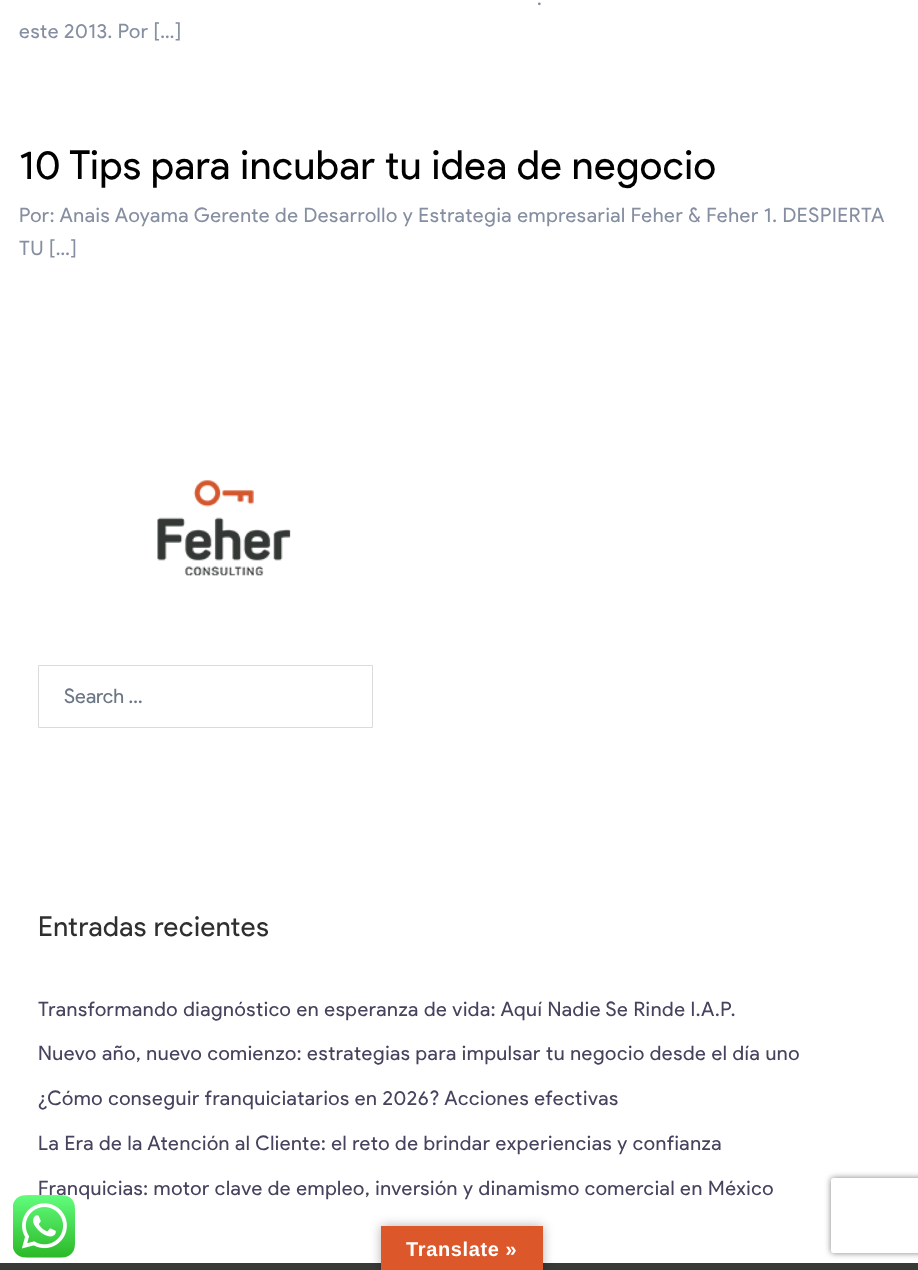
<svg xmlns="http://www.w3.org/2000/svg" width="918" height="1270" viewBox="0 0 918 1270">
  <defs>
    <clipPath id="clip1"><path d="M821 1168H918V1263H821ZM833.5 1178H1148.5C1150 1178 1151 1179 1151 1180.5V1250.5C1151 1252 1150 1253 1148.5 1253H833.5C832 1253 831 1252 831 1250.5V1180.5C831 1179 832 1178 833.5 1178Z" clip-rule="evenodd"/></clipPath>
  </defs>
  <rect width="100%" height="100%" fill="#fff"/>
  <image x="157" y="480" width="134" height="96" href="img/1.png"/>
  <path d="M38.5 665.5h334v62H38.5z" fill="none" stroke="#dbdbdb"/>
  <path d="M0 1263h918v7H0z" fill="#373a36"/>
  <path d="M381 1226h162v44H381z" fill="#0000004d" filter="blur(5.5px)"/>
  <path d="M381 1226h162v44H381z" fill="#dc582a"/>
  <g clip-path="url(#clip1)">
    <rect x="831" y="1178" width="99" height="75" rx="2.5" fill="#808080" filter="blur(3px)"/>
  </g>
  <g font-family="Product Sans" font-size="20" letter-spacing="0.62" fill="#858fa1">
    <text x="537" y="5">.</text>
    <text x="19" y="38">este 2013. Por […]</text>
  </g>
  <text x="19" y="179" font-family="Product Sans" font-size="40" letter-spacing="0.62" fill="#000">10 Tips para incubar tu idea de negocio</text>
  <g font-family="Product Sans" font-size="20" letter-spacing="0.62" fill="#858fa1">
    <text x="19" y="222">Por: Anais Aoyama Gerente de Desarrollo y Estrategia empresarial Feher &amp; Feher 1. DESPIERTA</text>
    <text x="19" y="255">TU […]</text>
  </g>
  <text x="64" y="703" font-family="Product Sans" font-size="20" fill="#6d7685">Search …</text>
  <text x="38" y="936" font-family="Product Sans" font-size="27.5" letter-spacing="0.62" fill="#2f2f30">Entradas recientes</text>
  <g font-family="Product Sans" font-size="20" letter-spacing="0.62" fill="#47425d">
    <text x="38" y="1016">Transformando diagnóstico en esperanza de vida: Aquí Nadie Se Rinde I.A.P.</text>
    <text x="38" y="1060">Nuevo año, nuevo comienzo: estrategias para impulsar tu negocio desde el día uno</text>
    <text x="38" y="1105">¿Cómo conseguir franquiciatarios en 2026? Acciones efectivas</text>
    <text x="38" y="1150">La Era de la Atención al Cliente: el reto de brindar experiencias y confianza</text>
    <text x="38" y="1195">Franquicias: motor clave de empleo, inversión y dinamismo comercial en México</text>
  </g>
  <image x="13" y="1195" width="62" height="63" href="img/2.png"/>
  <text x="406" y="1256" font-family="Liberation Sans" font-size="20" font-weight="bold" letter-spacing="0.62" fill="#fff">Translate »</text>
</svg>
